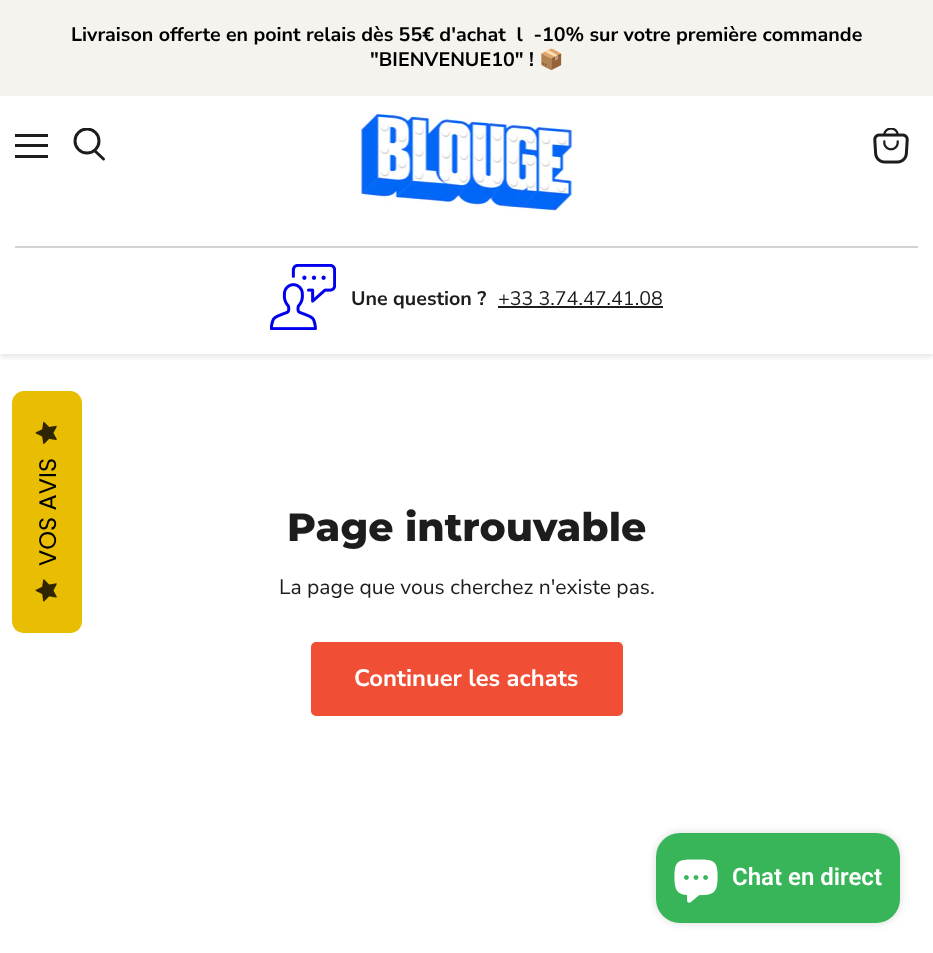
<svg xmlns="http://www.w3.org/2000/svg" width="933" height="953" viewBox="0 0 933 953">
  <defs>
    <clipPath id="clip1"><path d="M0 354h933v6H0z"/></clipPath>
    <clipPath id="clip2"><path d="M72 128h35v36H72z"/></clipPath>
  </defs>
  <rect width="100%" height="100%" fill="#fff"/>
  <g clip-path="url(#clip1)">
    <path d="M0 98h933v258H0z" fill="#80808040" filter="blur(3px)"/>
  </g>
  <path d="M0 0h933v96H0z" fill="#f5f3ed"/>
  <path d="M15 134h33v3H15z" fill="#1d1d1d"/>
  <path d="M15 144h33v3H15z" fill="#1d1d1d"/>
  <path d="M15 155h33v3H15z" fill="#1d1d1d"/>
  <path d="M103.5 159L95 151" fill="none" stroke="#1d1d1d" stroke-width="3" stroke-linecap="round"/>
  <g clip-path="url(#clip2)">
    <circle cx="87" cy="141" r="12" fill="none" stroke="#1d1d1d" stroke-width="3"/>
  </g>
  <image x="873" y="128" width="36" height="36" href="img/1.png"/>
  <image x="360" y="111" width="213" height="102" href="img/2.png"/>
  <path d="M15 246h903v2H15z" fill="#d2d2d2"/>
  <image x="270" y="264" width="66" height="66" href="img/3.png"/>
  <path d="M498 306h165v2H498z" fill="#1d1d1d"/>
  <path d="M12 621V403C12 397 17 391 24 391H70C77 391 82 397 82 403V621C82 628 77 633 70 633H24C17 633 12 628 12 621Z" fill="#e9bd02"/>
  <image x="35" y="421" width="22" height="23" href="img/4.png"/>
  <image x="35" y="579" width="22" height="23" href="img/5.png"/>
  <rect x="312" y="643" width="310" height="72" rx="4" fill="#f04f36" stroke="#f04f36" stroke-width="2"/>
  <rect x="656" y="833" width="244" height="90" rx="24" fill="#00000026" filter="blur(4px)"/>
  <rect x="656" y="833" width="244" height="90" rx="24" fill="#39b559"/>
  <image x="674" y="859" width="44" height="44" href="img/6.png"/>
  <g font-family="Nunito Sans" font-size="19.7" font-weight="bold" fill="#000">
    <text x="71" y="41" xml:space="preserve">Livraison offerte en point relais dès 55€ d'achat  l  -10% sur votre première commande</text>
    <text x="370" y="66">"BIENVENUE10" !</text>
  </g>
  <text x="539" y="66" font-family="Noto Color Emoji" font-size="19.7" font-weight="bold" fill="#000">📦</text>
  <text x="351" y="305" font-family="Nunito Sans" font-size="19.7" font-weight="bold" fill="#1d1d1d">Une question ?</text>
  <text x="498" y="305" font-family="Nunito Sans" font-size="19.7" fill="#1d1d1d">+33 3.74.47.41.08</text>
  <text x="56" y="566" transform="rotate(-90 56 566)" font-family="Poppins" font-size="24" fill="#000">VOS AVIS</text>
  <text x="287" y="541" font-family="Montserrat" font-size="39.4" font-weight="800" fill="#1d1d1d">Page introuvable</text>
  <text x="279" y="594" font-family="Nunito Sans" font-size="21.1" fill="#1d1d1d">La page que vous cherchez n'existe pas.</text>
  <text x="354" y="686" font-family="Nunito Sans" font-size="23.75" font-weight="bold" fill="#fff">Continuer les achats</text>
  <text x="732" y="885" font-family="Roboto" font-size="24" font-weight="600" fill="#fff">Chat en direct</text>
</svg>
